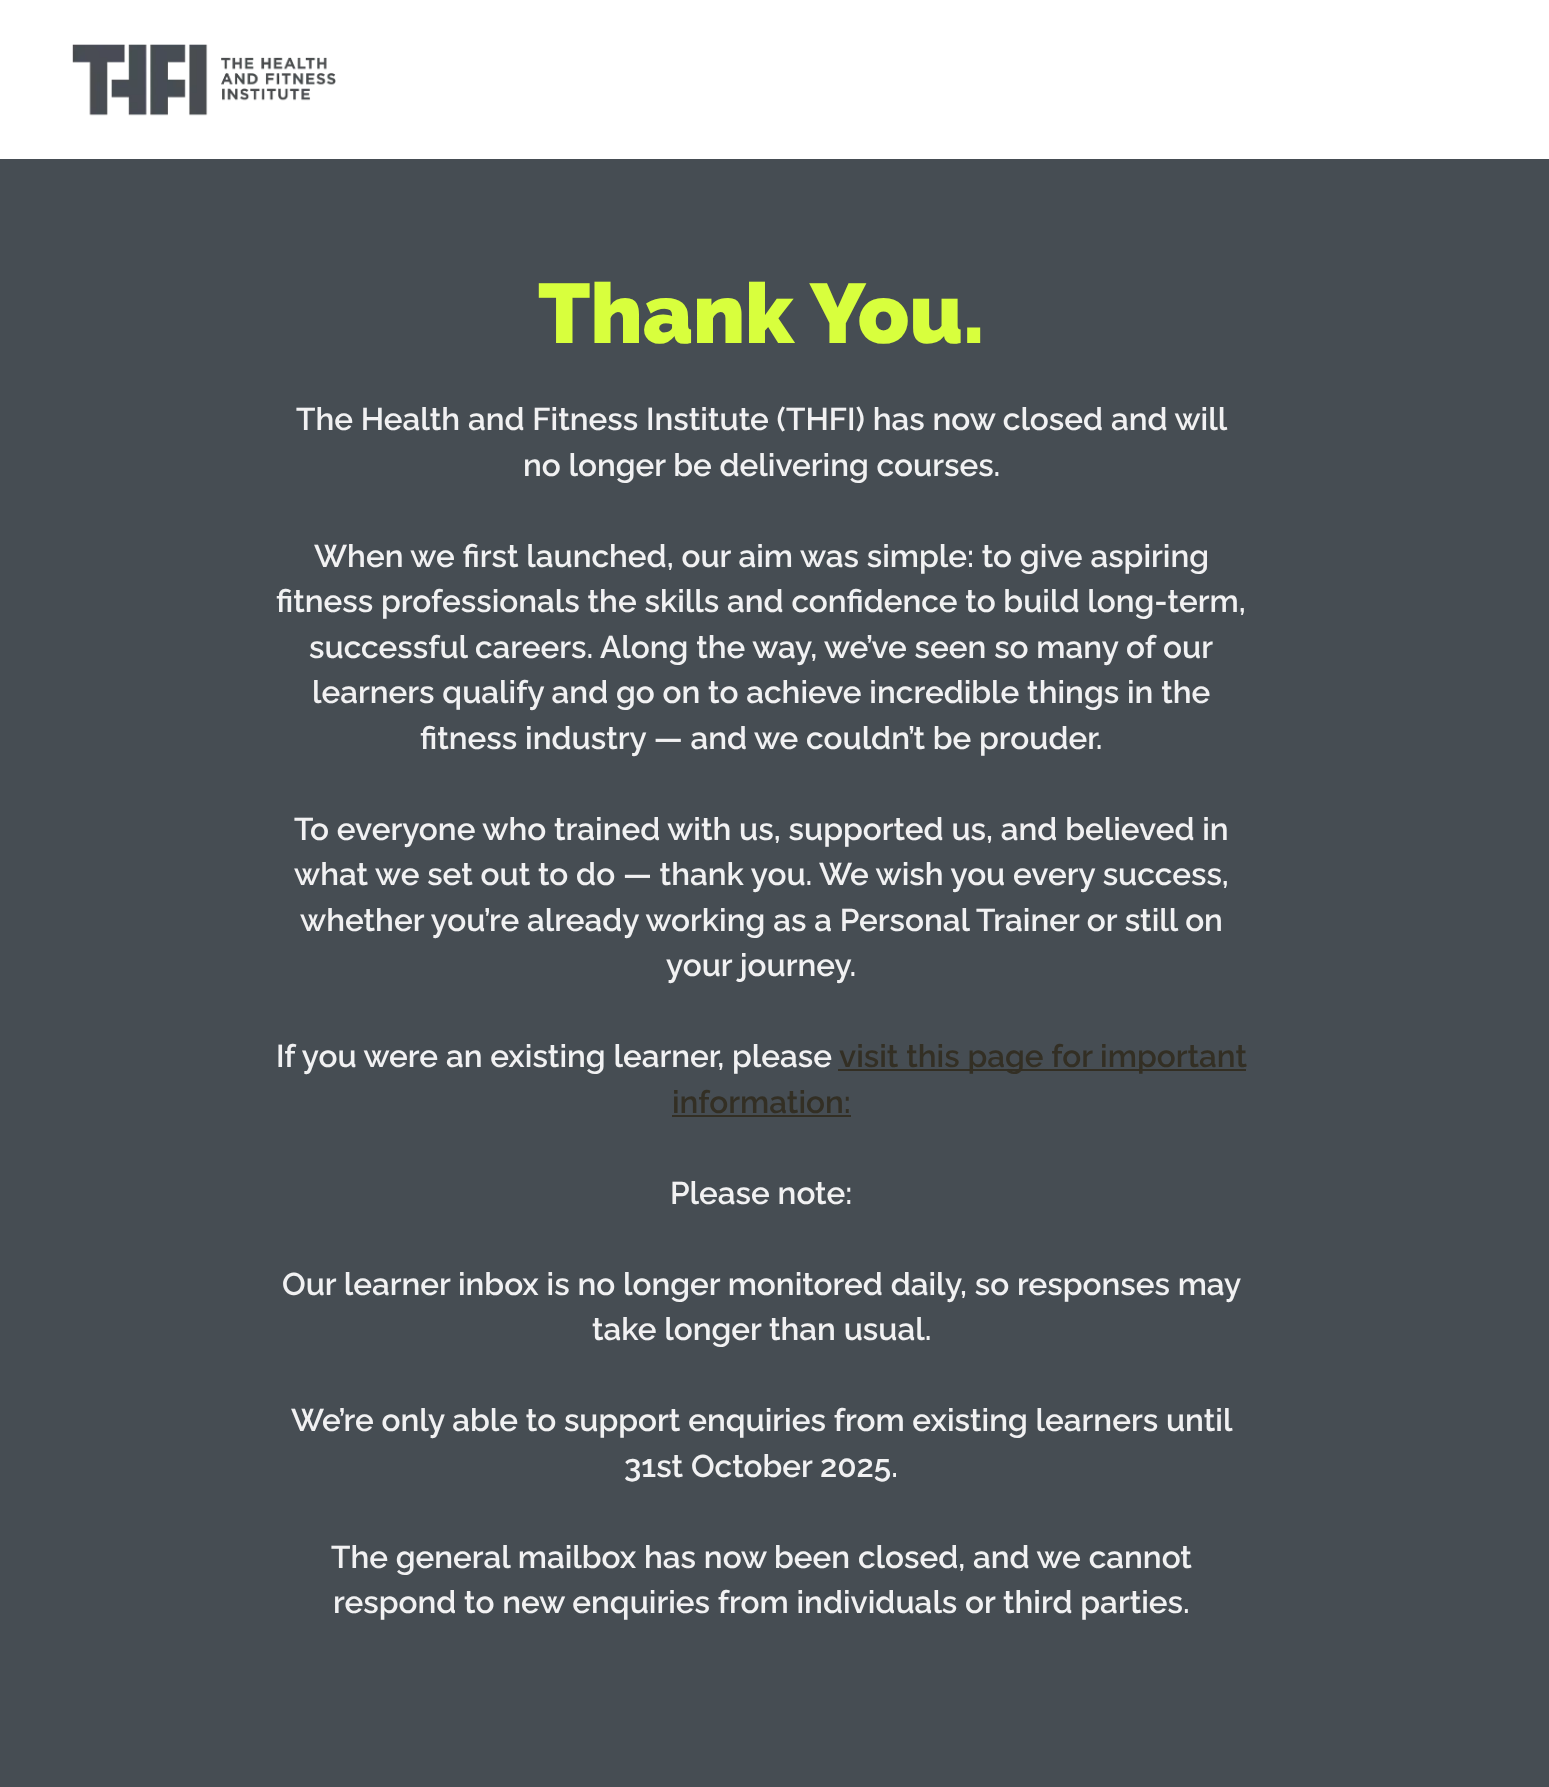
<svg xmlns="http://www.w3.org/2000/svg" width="1549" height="1787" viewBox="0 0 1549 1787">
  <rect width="100%" height="100%" fill="#fff"/>
  <image x="72" y="44" width="264" height="72" href="img/1.png"/>
  <path d="M0 159h1549v1628H0z" fill="#464d53"/>
  <path d="M838 1069h408v2H838z" fill="#332f24"/>
  <path d="M672 1115h179v2H672z" fill="#332f24"/>
  <text x="538" y="343" font-family="Raleway" font-size="84" font-weight="900" fill="#d8ff3d">Thank You.</text>
  <g font-family="Raleway" font-size="31.5" font-weight="600" fill="#f1f1f2">
    <text x="296" y="430">The Health and Fitness Institute (THFI) has now closed and will</text>
    <text x="523" y="476">no longer be delivering courses.</text>
    <text x="314" y="567">When we first launched, our aim was simple: to give aspiring</text>
    <text x="276" y="612">fitness professionals the skills and confidence to build long-term,</text>
    <text x="309" y="658">successful careers. Along the way, we’ve seen so many of our</text>
    <text x="312" y="703">learners qualify and go on to achieve incredible things in the</text>
    <text x="420" y="749">fitness industry — and we couldn’t be prouder.</text>
    <text x="294" y="840">To everyone who trained with us, supported us, and believed in</text>
    <text x="294" y="885">what we set out to do — thank you. We wish you every success,</text>
    <text x="300" y="931">whether you’re already working as a Personal Trainer or still on</text>
    <text x="666" y="976">your journey.</text>
    <text x="276" y="1067">If you were an existing learner, please</text>
  </g>
  <g font-family="Raleway" font-size="31.5" font-weight="600" fill="#332f24">
    <text x="839" y="1067">visit this page for important</text>
    <text x="672" y="1113">information:</text>
  </g>
  <g font-family="Raleway" font-size="31.5" font-weight="600" fill="#f1f1f2">
    <text x="670" y="1204">Please note:</text>
    <text x="282" y="1295">Our learner inbox is no longer monitored daily, so responses may</text>
    <text x="592" y="1340">take longer than usual.</text>
    <text x="291" y="1431">We’re only able to support enquiries from existing learners until</text>
    <text x="624" y="1477">31st October 2025.</text>
    <text x="331" y="1568">The general mailbox has now been closed, and we cannot</text>
    <text x="333" y="1613">respond to new enquiries from individuals or third parties.</text>
  </g>
</svg>
